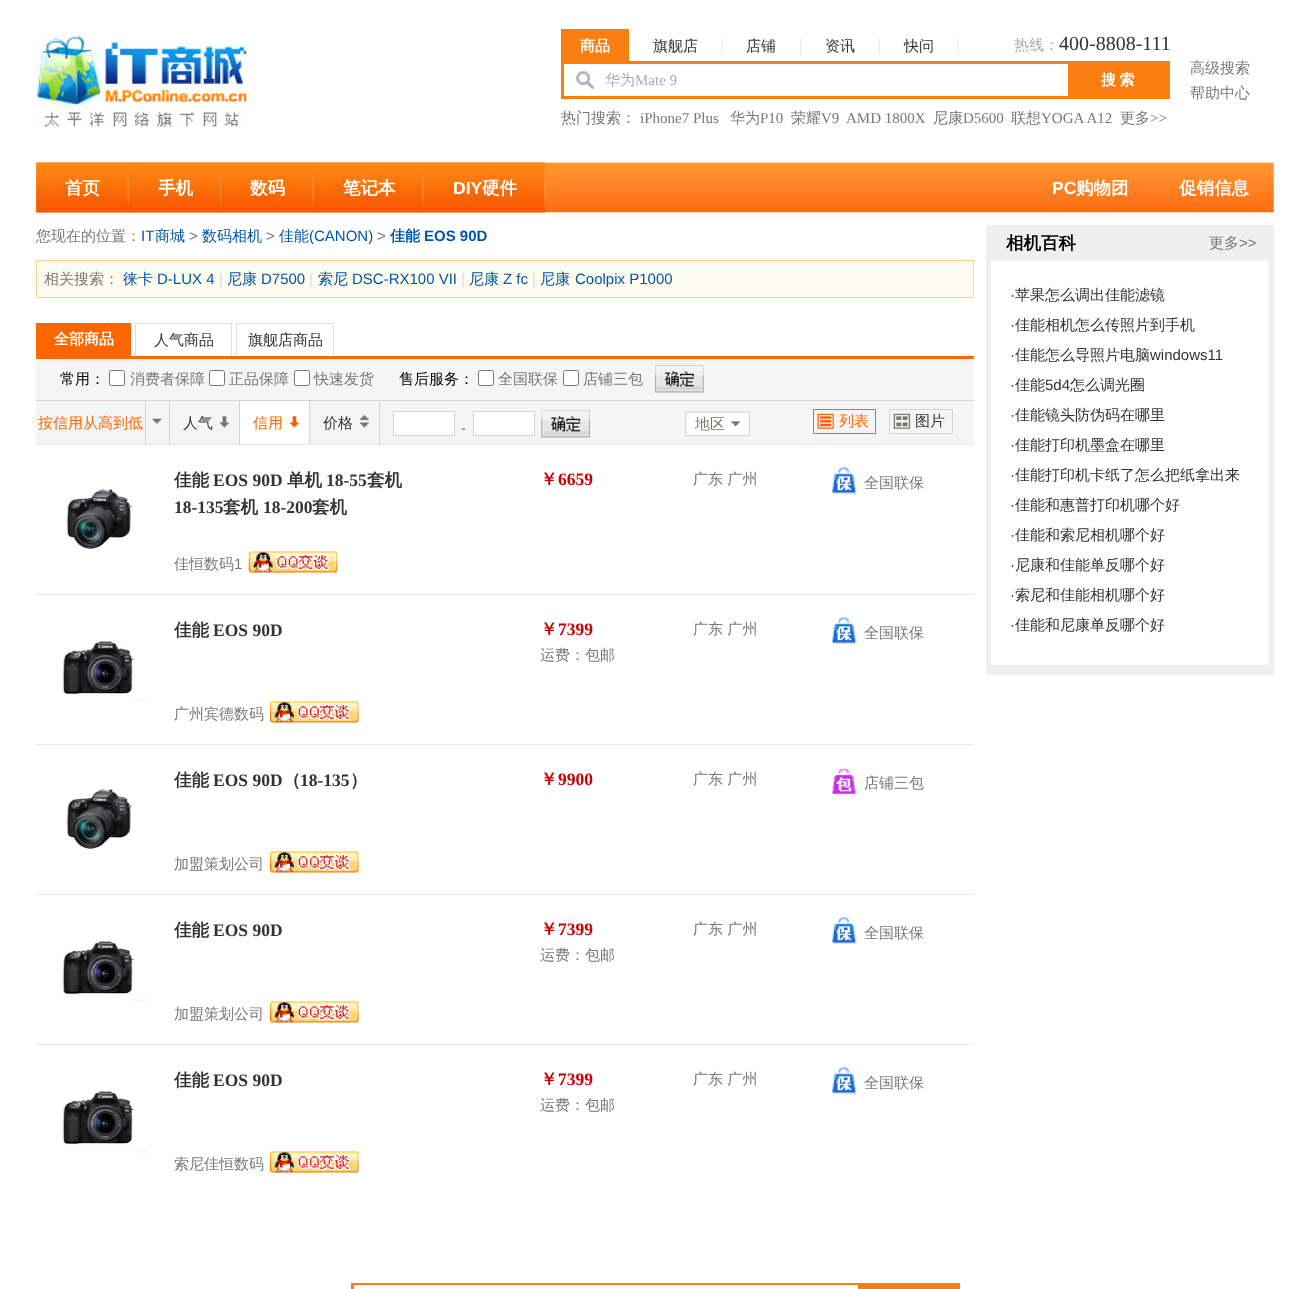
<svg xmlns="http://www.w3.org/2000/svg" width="1310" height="1289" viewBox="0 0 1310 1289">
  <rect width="100%" height="100%" fill="#fff"/>
  <image x="37" y="32" width="210" height="95" href="img/1.png"/>
  <path d="M561 29h68v32H561z" fill="#fb7e10"/>
  <image x="721" y="39" width="2" height="15" href="img/2.png"/>
  <image x="800" y="38" width="2" height="16" href="img/3.png"/>
  <image x="878" y="38" width="2" height="16" href="img/4.png"/>
  <image x="957" y="38" width="2" height="16" href="img/5.png"/>
  <path d="M561 61h609v38H561z" fill="#fb7e10"/>
  <path d="M564 64h504v32H564z" fill="#fff"/>
  <image x="576" y="71" width="18" height="18" href="img/6.png"/>
  <image x="36" y="162" width="1238" height="51" href="img/7.png"/>
  <image x="36" y="162" width="93" height="51" href="img/8.png"/>
  <image x="128" y="162" width="94" height="51" href="img/9.png"/>
  <image x="221" y="162" width="93" height="51" href="img/10.png"/>
  <image x="313" y="162" width="111" height="51" href="img/11.png"/>
  <image x="423" y="162" width="122" height="51" href="img/12.png"/>
  <path d="M36.5 260.5h937v37H36.5z" fill="#fefcef" stroke="#ffd195"/>
  <path d="M36 356h938v3H36z" fill="#f60"/>
  <path d="M36 323h95v33H36z" fill="#f60"/>
  <path d="M135 323h98v1H135z" fill="#ddd"/>
  <path d="M231 323h1v33H231z" fill="#ddd"/>
  <path d="M135 323h1v33H135z" fill="#ddd"/>
  <path d="M236 323h98v1H236z" fill="#ddd"/>
  <path d="M333 323h1v33H333z" fill="#ddd"/>
  <path d="M236 323h1v33H236z" fill="#ddd"/>
  <path d="M36 359h938v41H36z" fill="#f5f5f5"/>
  <path d="M36 400h938v1H36z" fill="#d4d4d4"/>
  <rect x="109.5" y="370.5" width="15" height="15" rx="2" fill="#fff" stroke="#767676"/>
  <rect x="209.5" y="370.5" width="15" height="15" rx="2" fill="#fff" stroke="#767676"/>
  <rect x="294.5" y="370.5" width="15" height="15" rx="2" fill="#fff" stroke="#767676"/>
  <rect x="478.5" y="370.5" width="15" height="15" rx="2" fill="#fff" stroke="#767676"/>
  <rect x="563.5" y="370.5" width="15" height="15" rx="2" fill="#fff" stroke="#767676"/>
  <image x="655" y="365" width="49" height="28" href="img/13.png"/>
  <path d="M36 401h938v43H36z" fill="#f5f5f5"/>
  <path d="M145 401h1v43H145z" fill="#d4d4d4"/>
  <image x="152" y="418" width="10" height="6" href="img/14.png"/>
  <path d="M169 401h1v43H169z" fill="#d4d4d4"/>
  <image x="220" y="416" width="9" height="12" href="img/15.png"/>
  <path d="M239 401h1v43H239z" fill="#d4d4d4"/>
  <path d="M240 401h69v43H240z" fill="#fff"/>
  <image x="290" y="416" width="9" height="12" href="img/16.png"/>
  <path d="M309 401h1v43H309z" fill="#d4d4d4"/>
  <image x="360" y="414" width="9" height="14" href="img/17.png"/>
  <path d="M379 401h1v43H379z" fill="#d4d4d4"/>
  <path d="M393.5 411.5h61v24H393.5z" fill="#fff" stroke="#d4d4d4"/>
  <path d="M473.5 411.5h61v24H473.5z" fill="#fff" stroke="#d4d4d4"/>
  <image x="541" y="410" width="49" height="28" href="img/18.png"/>
  <image x="685" y="411" width="65" height="26" href="img/19.png"/>
  <image x="817" y="413" width="17" height="16" href="img/20.png"/>
  <path d="M813.5 409.5h62v24H813.5z" fill="none" stroke="#f60"/>
  <image x="893" y="413" width="18" height="16" href="img/21.png"/>
  <path d="M889.5 409.5h63v24H889.5z" fill="none" stroke="#d4d4d4"/>
  <path d="M36 444h938v1H36z" fill="#e8e8e8"/>
  <image x="248" y="551" width="90" height="22" href="img/22.png"/>
  <image x="832" y="467" width="25" height="27" href="img/23.png"/>
  <image x="66" y="488" width="66" height="61" href="img/24.png"/>
  <path d="M36 594h938v1H36z" fill="#e8e8e8"/>
  <image x="270" y="701" width="89" height="22" href="img/25.png"/>
  <image x="832" y="617" width="25" height="27" href="img/23.png"/>
  <image x="62" y="641" width="86" height="62" href="img/26.png"/>
  <path d="M36 744h938v1H36z" fill="#e8e8e8"/>
  <image x="270" y="851" width="89" height="22" href="img/25.png"/>
  <image x="832" y="768" width="25" height="26" href="img/27.png"/>
  <image x="66" y="788" width="66" height="61" href="img/24.png"/>
  <path d="M36 894h938v1H36z" fill="#e8e8e8"/>
  <image x="270" y="1001" width="89" height="22" href="img/25.png"/>
  <image x="832" y="917" width="25" height="27" href="img/23.png"/>
  <image x="62" y="941" width="86" height="62" href="img/26.png"/>
  <path d="M36 1044h938v1H36z" fill="#e8e8e8"/>
  <image x="270" y="1151" width="89" height="22" href="img/25.png"/>
  <image x="832" y="1067" width="25" height="27" href="img/23.png"/>
  <image x="62" y="1091" width="86" height="62" href="img/26.png"/>
  <path d="M1269 225h5v445H1269z" fill="#efefef"/>
  <path d="M986 665h288v10H986z" fill="#efefef"/>
  <path d="M986 225h5v445H986z" fill="#efefef"/>
  <path d="M991 225h278v36H991z" fill="#efefef"/>
  <path d="M351 1283h609v6H351z" fill="#fb7e10"/>
  <path d="M354 1285h504v4H354z" fill="#fff"/>
  <text x="580" y="51" font-family="WenQuanYi Zen Hei" font-size="15" font-weight="bold" fill="#fff">商品</text>
  <g font-family="WenQuanYi Zen Hei" font-size="15" font-weight="500" fill="#333">
    <text x="653" y="51">旗舰店</text>
    <text x="746" y="51">店铺</text>
    <text x="825" y="51">资讯</text>
    <text x="904" y="51">快问</text>
  </g>
  <text x="1014" y="50" font-family="WenQuanYi Zen Hei" font-size="15" font-weight="500" fill="#aaa">热线：</text>
  <text x="1059" y="50" font-family="Liberation Serif" font-size="20" fill="#333">400-8808-111</text>
  <text x="605" y="85" font-family="WenQuanYi Zen Hei" font-size="15" font-weight="500" fill="#aaa">华为</text>
  <text x="635" y="85" font-family="Liberation Serif" font-size="15" fill="#aaa">Mate 9</text>
  <text x="1101" y="85" word-spacing="-1" font-family="WenQuanYi Zen Hei" font-size="15" font-weight="bold" fill="#fff">搜 索</text>
  <g font-family="WenQuanYi Zen Hei" font-size="15" font-weight="500" fill="#787878">
    <text x="1190" y="73">高级搜索</text>
    <text x="1190" y="98">帮助中心</text>
    <text x="561" y="123">热门搜索：</text>
  </g>
  <text x="640" y="123" font-family="Liberation Serif" font-size="15" fill="#787878">iPhone7 Plus</text>
  <text x="730" y="123" font-family="WenQuanYi Zen Hei" font-size="15" font-weight="500" fill="#787878">华为</text>
  <text x="760" y="123" font-family="Liberation Serif" font-size="15" fill="#787878">P10</text>
  <text x="791" y="123" font-family="WenQuanYi Zen Hei" font-size="15" font-weight="500" fill="#787878">荣耀</text>
  <g font-family="Liberation Serif" font-size="15" fill="#787878">
    <text x="821" y="123">V9</text>
    <text x="846" y="123">AMD 1800X</text>
  </g>
  <text x="933" y="123" font-family="WenQuanYi Zen Hei" font-size="15" font-weight="500" fill="#787878">尼康</text>
  <text x="963" y="123" font-family="Liberation Serif" font-size="15" fill="#787878">D5600</text>
  <text x="1011" y="123" font-family="WenQuanYi Zen Hei" font-size="15" font-weight="500" fill="#787878">联想</text>
  <text x="1041" y="123" font-family="Liberation Serif" font-size="15" fill="#787878">YOGA A12</text>
  <text x="1120" y="123" font-family="WenQuanYi Zen Hei" font-size="15" font-weight="500" fill="#787878">更多</text>
  <text x="1150" y="123" font-family="Liberation Serif" font-size="15" fill="#787878">&gt;&gt;</text>
  <g font-family="WenQuanYi Zen Hei" font-size="17.5" font-weight="bold" fill="#fff">
    <text x="65" y="194">首页</text>
    <text x="158" y="194">手机</text>
    <text x="250" y="194">数码</text>
    <text x="343" y="194">笔记本</text>
  </g>
  <text x="453" y="194" font-family="Liberation Sans" font-size="17.5" font-weight="bold" fill="#fff">DIY</text>
  <text x="482" y="194" font-family="WenQuanYi Zen Hei" font-size="17.5" font-weight="bold" fill="#fff">硬件</text>
  <text x="1052" y="194" font-family="Liberation Sans" font-size="17.5" font-weight="bold" fill="#fff">PC</text>
  <g font-family="WenQuanYi Zen Hei" font-size="17.5" font-weight="bold" fill="#fff">
    <text x="1076" y="194">购物团</text>
    <text x="1179" y="194">促销信息</text>
  </g>
  <text x="36" y="241" font-family="WenQuanYi Zen Hei" font-size="15" font-weight="500" fill="#787878">您现在的位置：</text>
  <text x="141" y="241" font-family="Liberation Sans" font-size="15" fill="#05a">IT</text>
  <text x="155" y="241" font-family="WenQuanYi Zen Hei" font-size="15" font-weight="500" fill="#05a">商城</text>
  <text x="189" y="241" font-family="Liberation Sans" font-size="15" fill="#787878">&gt;</text>
  <text x="202" y="241" font-family="WenQuanYi Zen Hei" font-size="15" font-weight="500" fill="#05a">数码相机</text>
  <text x="266" y="241" font-family="Liberation Sans" font-size="15" fill="#787878">&gt;</text>
  <text x="279" y="241" font-family="WenQuanYi Zen Hei" font-size="15" font-weight="500" fill="#05a">佳能</text>
  <text x="309" y="241" font-family="Liberation Sans" font-size="15" fill="#05a">(CANON)</text>
  <text x="377" y="241" font-family="Liberation Sans" font-size="15" fill="#787878">&gt;</text>
  <text x="390" y="241" font-family="WenQuanYi Zen Hei" font-size="15" font-weight="bold" fill="#05a">佳能</text>
  <text x="424" y="241" font-family="Liberation Sans" font-size="15" font-weight="bold" fill="#05a">EOS 90D</text>
  <text x="44" y="284" font-family="WenQuanYi Zen Hei" font-size="15" font-weight="500" fill="#787878">相关搜索：</text>
  <text x="123" y="284" font-family="WenQuanYi Zen Hei" font-size="15" font-weight="500" fill="#05a">徕卡</text>
  <text x="157" y="284" font-family="Liberation Sans" font-size="15" fill="#05a">D-LUX 4</text>
  <text x="219" y="284" font-family="Liberation Sans" font-size="15" fill="#cddcf1">|</text>
  <text x="227" y="284" font-family="WenQuanYi Zen Hei" font-size="15" font-weight="500" fill="#05a">尼康</text>
  <text x="261" y="284" font-family="Liberation Sans" font-size="15" fill="#05a">D7500</text>
  <text x="309" y="284" font-family="Liberation Sans" font-size="15" fill="#cddcf1">|</text>
  <text x="318" y="284" font-family="WenQuanYi Zen Hei" font-size="15" font-weight="500" fill="#05a">索尼</text>
  <text x="352" y="284" font-family="Liberation Sans" font-size="15" fill="#05a">DSC-RX100 VII</text>
  <text x="461" y="284" font-family="Liberation Sans" font-size="15" fill="#cddcf1">|</text>
  <text x="469" y="284" font-family="WenQuanYi Zen Hei" font-size="15" font-weight="500" fill="#05a">尼康</text>
  <text x="503" y="284" font-family="Liberation Sans" font-size="15" fill="#05a">Z fc</text>
  <text x="532" y="284" font-family="Liberation Sans" font-size="15" fill="#cddcf1">|</text>
  <text x="540" y="284" font-family="WenQuanYi Zen Hei" font-size="15" font-weight="500" fill="#05a">尼康</text>
  <text x="575" y="284" font-family="Liberation Sans" font-size="15" fill="#05a">Coolpix P1000</text>
  <text x="54" y="344" font-family="WenQuanYi Zen Hei" font-size="15" font-weight="bold" fill="#fff">全部商品</text>
  <g font-family="WenQuanYi Zen Hei" font-size="15" font-weight="500" fill="#333">
    <text x="154" y="345">人气商品</text>
    <text x="248" y="345">旗舰店商品</text>
  </g>
  <text x="60" y="384" font-family="WenQuanYi Zen Hei" font-size="15" font-weight="500" fill="#000">常用：</text>
  <g font-family="WenQuanYi Zen Hei" font-size="15" font-weight="500" fill="#787878">
    <text x="130" y="384">消费者保障</text>
    <text x="229" y="384">正品保障</text>
    <text x="314" y="384">快速发货</text>
  </g>
  <text x="399" y="384" font-family="WenQuanYi Zen Hei" font-size="15" font-weight="500" fill="#000">售后服务：</text>
  <g font-family="WenQuanYi Zen Hei" font-size="15" font-weight="500" fill="#787878">
    <text x="498" y="384">全国联保</text>
    <text x="583" y="384">店铺三包</text>
  </g>
  <text x="38" y="428" font-family="WenQuanYi Zen Hei" font-size="15" font-weight="500" fill="#f60">按信用从高到低</text>
  <text x="183" y="428" font-family="WenQuanYi Zen Hei" font-size="15" font-weight="500" fill="#333">人气</text>
  <text x="253" y="428" font-family="WenQuanYi Zen Hei" font-size="15" font-weight="500" fill="#f60">信用</text>
  <text x="323" y="428" font-family="WenQuanYi Zen Hei" font-size="15" font-weight="500" fill="#333">价格</text>
  <text x="461" y="433" font-family="Liberation Sans" font-size="15" fill="#777870">-</text>
  <text x="695" y="429" font-family="WenQuanYi Zen Hei" font-size="15" font-weight="500" fill="#777870">地区</text>
  <text x="839" y="426" font-family="WenQuanYi Zen Hei" font-size="15" font-weight="500" fill="#f60">列表</text>
  <text x="915" y="426" font-family="WenQuanYi Zen Hei" font-size="15" font-weight="500" fill="#333">图片</text>
  <text x="174" y="486" font-family="WenQuanYi Zen Hei" font-size="17.5" font-weight="bold" fill="#333">佳能</text>
  <text x="213" y="486" font-family="Liberation Serif" font-size="17.5" font-weight="bold" fill="#333">EOS 90D</text>
  <text x="287" y="486" font-family="WenQuanYi Zen Hei" font-size="17.5" font-weight="bold" fill="#333">单机</text>
  <text x="326" y="486" font-family="Liberation Serif" font-size="17.5" font-weight="bold" fill="#333">18-55</text>
  <text x="367" y="486" font-family="WenQuanYi Zen Hei" font-size="17.5" font-weight="bold" fill="#333">套机</text>
  <text x="174" y="513" font-family="Liberation Serif" font-size="17.5" font-weight="bold" fill="#333">18-135</text>
  <text x="223" y="513" font-family="WenQuanYi Zen Hei" font-size="17.5" font-weight="bold" fill="#333">套机</text>
  <text x="263" y="513" font-family="Liberation Serif" font-size="17.5" font-weight="bold" fill="#333">18-200</text>
  <text x="312" y="513" font-family="WenQuanYi Zen Hei" font-size="17.5" font-weight="bold" fill="#333">套机</text>
  <text x="174" y="569" font-family="WenQuanYi Zen Hei" font-size="15" font-weight="500" fill="#787878">佳恒数码</text>
  <text x="234" y="569" font-family="Liberation Sans" font-size="15" fill="#787878">1</text>
  <text x="540" y="485" font-family="WenQuanYi Zen Hei" font-size="17.5" font-weight="bold" fill="#c00">￥</text>
  <text x="558" y="485" font-family="Liberation Serif" font-size="17.5" font-weight="bold" fill="#c00">6659</text>
  <g font-family="WenQuanYi Zen Hei" font-size="15" font-weight="500" fill="#787878">
    <text x="693" y="484">广东 广州</text>
    <text x="864" y="488">全国联保</text>
  </g>
  <text x="174" y="636" font-family="WenQuanYi Zen Hei" font-size="17.5" font-weight="bold" fill="#333">佳能</text>
  <text x="213" y="636" font-family="Liberation Serif" font-size="17.5" font-weight="bold" fill="#333">EOS 90D</text>
  <text x="174" y="719" font-family="WenQuanYi Zen Hei" font-size="15" font-weight="500" fill="#787878">广州宾德数码</text>
  <text x="540" y="635" font-family="WenQuanYi Zen Hei" font-size="17.5" font-weight="bold" fill="#c00">￥</text>
  <text x="558" y="635" font-family="Liberation Serif" font-size="17.5" font-weight="bold" fill="#c00">7399</text>
  <g font-family="WenQuanYi Zen Hei" font-size="15" font-weight="500" fill="#787878">
    <text x="540" y="660">运费：包邮</text>
    <text x="693" y="634">广东 广州</text>
    <text x="864" y="638">全国联保</text>
  </g>
  <text x="174" y="786" font-family="WenQuanYi Zen Hei" font-size="17.5" font-weight="bold" fill="#333">佳能</text>
  <text x="213" y="786" font-family="Liberation Serif" font-size="17.5" font-weight="bold" fill="#333">EOS 90D</text>
  <text x="283" y="786" font-family="WenQuanYi Zen Hei" font-size="17.5" font-weight="bold" fill="#333">（</text>
  <text x="300" y="786" font-family="Liberation Serif" font-size="17.5" font-weight="bold" fill="#333">18-135</text>
  <text x="350" y="786" font-family="WenQuanYi Zen Hei" font-size="17.5" font-weight="bold" fill="#333">）</text>
  <text x="174" y="869" font-family="WenQuanYi Zen Hei" font-size="15" font-weight="500" fill="#787878">加盟策划公司</text>
  <text x="540" y="785" font-family="WenQuanYi Zen Hei" font-size="17.5" font-weight="bold" fill="#c00">￥</text>
  <text x="558" y="785" font-family="Liberation Serif" font-size="17.5" font-weight="bold" fill="#c00">9900</text>
  <g font-family="WenQuanYi Zen Hei" font-size="15" font-weight="500" fill="#787878">
    <text x="693" y="784">广东 广州</text>
    <text x="864" y="788">店铺三包</text>
  </g>
  <text x="174" y="936" font-family="WenQuanYi Zen Hei" font-size="17.5" font-weight="bold" fill="#333">佳能</text>
  <text x="213" y="936" font-family="Liberation Serif" font-size="17.5" font-weight="bold" fill="#333">EOS 90D</text>
  <text x="174" y="1019" font-family="WenQuanYi Zen Hei" font-size="15" font-weight="500" fill="#787878">加盟策划公司</text>
  <text x="540" y="935" font-family="WenQuanYi Zen Hei" font-size="17.5" font-weight="bold" fill="#c00">￥</text>
  <text x="558" y="935" font-family="Liberation Serif" font-size="17.5" font-weight="bold" fill="#c00">7399</text>
  <g font-family="WenQuanYi Zen Hei" font-size="15" font-weight="500" fill="#787878">
    <text x="540" y="960">运费：包邮</text>
    <text x="693" y="934">广东 广州</text>
    <text x="864" y="938">全国联保</text>
  </g>
  <text x="174" y="1086" font-family="WenQuanYi Zen Hei" font-size="17.5" font-weight="bold" fill="#333">佳能</text>
  <text x="213" y="1086" font-family="Liberation Serif" font-size="17.5" font-weight="bold" fill="#333">EOS 90D</text>
  <text x="174" y="1169" font-family="WenQuanYi Zen Hei" font-size="15" font-weight="500" fill="#787878">索尼佳恒数码</text>
  <text x="540" y="1085" font-family="WenQuanYi Zen Hei" font-size="17.5" font-weight="bold" fill="#c00">￥</text>
  <text x="558" y="1085" font-family="Liberation Serif" font-size="17.5" font-weight="bold" fill="#c00">7399</text>
  <g font-family="WenQuanYi Zen Hei" font-size="15" font-weight="500" fill="#787878">
    <text x="540" y="1110">运费：包邮</text>
    <text x="693" y="1084">广东 广州</text>
    <text x="864" y="1088">全国联保</text>
  </g>
  <text x="1006" y="249" font-family="WenQuanYi Zen Hei" font-size="17.5" font-weight="bold" fill="#000">相机百科</text>
  <text x="1209" y="248" font-family="WenQuanYi Zen Hei" font-size="15" font-weight="500" fill="#787878">更多</text>
  <text x="1239" y="248" font-family="Liberation Sans" font-size="15" fill="#787878">&gt;&gt;</text>
  <text x="1010" y="300" font-family="Liberation Sans" font-size="15" fill="#333">·</text>
  <text x="1015" y="300" font-family="WenQuanYi Zen Hei" font-size="15" font-weight="500" fill="#333">苹果怎么调出佳能滤镜</text>
  <text x="1010" y="330" font-family="Liberation Sans" font-size="15" fill="#333">·</text>
  <text x="1015" y="330" font-family="WenQuanYi Zen Hei" font-size="15" font-weight="500" fill="#333">佳能相机怎么传照片到手机</text>
  <text x="1010" y="360" font-family="Liberation Sans" font-size="15" fill="#333">·</text>
  <text x="1015" y="360" font-family="WenQuanYi Zen Hei" font-size="15" font-weight="500" fill="#333">佳能怎么导照片电脑</text>
  <g font-family="Liberation Sans" font-size="15" fill="#333">
    <text x="1150" y="360">windows11</text>
    <text x="1010" y="390">·</text>
  </g>
  <text x="1015" y="390" font-family="WenQuanYi Zen Hei" font-size="15" font-weight="500" fill="#333">佳能</text>
  <text x="1045" y="390" font-family="Liberation Sans" font-size="15" fill="#333">5d4</text>
  <text x="1070" y="390" font-family="WenQuanYi Zen Hei" font-size="15" font-weight="500" fill="#333">怎么调光圈</text>
  <text x="1010" y="420" font-family="Liberation Sans" font-size="15" fill="#333">·</text>
  <text x="1015" y="420" font-family="WenQuanYi Zen Hei" font-size="15" font-weight="500" fill="#333">佳能镜头防伪码在哪里</text>
  <text x="1010" y="450" font-family="Liberation Sans" font-size="15" fill="#333">·</text>
  <text x="1015" y="450" font-family="WenQuanYi Zen Hei" font-size="15" font-weight="500" fill="#333">佳能打印机墨盒在哪里</text>
  <text x="1010" y="480" font-family="Liberation Sans" font-size="15" fill="#333">·</text>
  <text x="1015" y="480" font-family="WenQuanYi Zen Hei" font-size="15" font-weight="500" fill="#333">佳能打印机卡纸了怎么把纸拿出来</text>
  <text x="1010" y="510" font-family="Liberation Sans" font-size="15" fill="#333">·</text>
  <text x="1015" y="510" font-family="WenQuanYi Zen Hei" font-size="15" font-weight="500" fill="#333">佳能和惠普打印机哪个好</text>
  <text x="1010" y="540" font-family="Liberation Sans" font-size="15" fill="#333">·</text>
  <text x="1015" y="540" font-family="WenQuanYi Zen Hei" font-size="15" font-weight="500" fill="#333">佳能和索尼相机哪个好</text>
  <text x="1010" y="570" font-family="Liberation Sans" font-size="15" fill="#333">·</text>
  <text x="1015" y="570" font-family="WenQuanYi Zen Hei" font-size="15" font-weight="500" fill="#333">尼康和佳能单反哪个好</text>
  <text x="1010" y="600" font-family="Liberation Sans" font-size="15" fill="#333">·</text>
  <text x="1015" y="600" font-family="WenQuanYi Zen Hei" font-size="15" font-weight="500" fill="#333">索尼和佳能相机哪个好</text>
  <text x="1010" y="630" font-family="Liberation Sans" font-size="15" fill="#333">·</text>
  <text x="1015" y="630" font-family="WenQuanYi Zen Hei" font-size="15" font-weight="500" fill="#333">佳能和尼康单反哪个好</text>
</svg>
